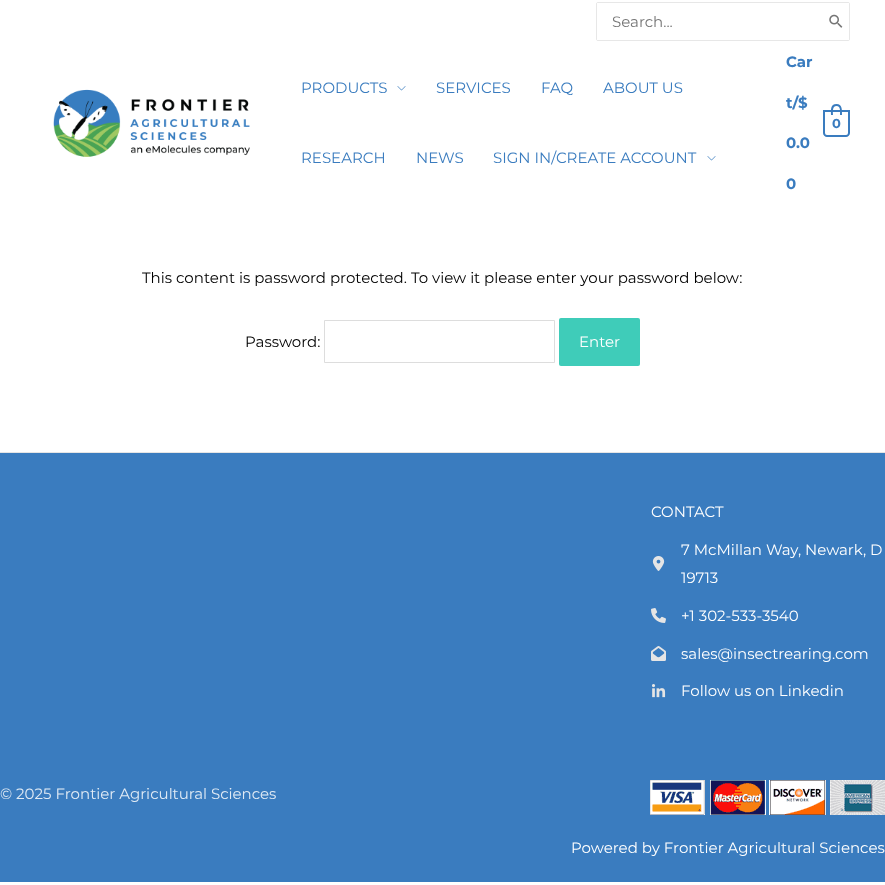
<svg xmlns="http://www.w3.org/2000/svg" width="885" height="885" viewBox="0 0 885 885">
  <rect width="100%" height="100%" fill="#fff"/>
  <rect x="596.5" y="2.5" width="253" height="38" rx="1.5" fill="none" stroke="#e7e7e7"/>
  <path d="M597 3h252v37H597z" fill="#fff"/>
  <image x="829" y="14" width="14" height="14" href="img/1.png"/>
  <image x="53" y="89" width="197" height="68" href="img/2.png"/>
  <image x="397" y="86" width="9" height="5" href="img/3.png"/>
  <image x="707" y="156" width="9" height="5" href="img/3.png"/>
  <path d="M824 111H849V133C849 134.5 847.5 136 846 136H827C825.5 136 824 134.5 824 133Z" fill="none" stroke="#3a7cbf" stroke-width="2"/>
  <path d="M836.5 104C842.5 104 842 110.5 842 115H831C831 110.5 830 104 836.5 104ZM836.5 106C841 106 840 112 840 115H833C833 112 832 106 836.5 106Z" fill="#3a7cbf" fill-rule="evenodd"/>
  <path d="M324.5 320.5h230v42H324.5z" fill="none" stroke="#ddd"/>
  <rect x="559" y="318" width="81" height="48" rx="2" fill="#3fccb9"/>
  <path d="M0 453h885v429H0z" fill="#3a7cbf"/>
  <path d="M0 452h885v1H0z" fill="#e5e5e5"/>
  <image x="652" y="556" width="13" height="15" href="img/4.png"/>
  <image x="651" y="608" width="15" height="15" href="img/5.png"/>
  <image x="651" y="646" width="15" height="15" href="img/6.png"/>
  <image x="652" y="684" width="14" height="14" href="img/7.png"/>
  <image x="650" y="780" width="235" height="35" href="img/8.png"/>
  <text x="612" y="27" font-family="Montserrat" font-size="15" fill="#757575">Search...</text>
  <g font-family="Montserrat" font-size="15" fill="#3a7cbf">
    <text x="301" y="93">PRODUCTS</text>
    <text x="436" y="93">SERVICES</text>
    <text x="541" y="93">FAQ</text>
    <text x="603" y="93">ABOUT US</text>
    <text x="301" y="163">RESEARCH</text>
    <text x="416" y="163">NEWS</text>
    <text x="493" y="163">SIGN IN/CREATE ACCOUNT</text>
  </g>
  <g font-family="Montserrat" font-size="15" font-weight="bold" fill="#3a7cbf">
    <text x="786" y="67">Car</text>
    <text x="786" y="108">t/$</text>
    <text x="786" y="148">0.0</text>
    <text x="786" y="189">0</text>
  </g>
  <text x="832" y="128" font-family="Montserrat" font-size="13" font-weight="bold" fill="#3a7cbf">0</text>
  <g font-family="Montserrat" font-size="15" fill="#000">
    <text x="142" y="283">This content is password protected. To view it please enter your password below:</text>
    <text x="245" y="347">Password:</text>
  </g>
  <g font-family="Montserrat" font-size="15" fill="#fff">
    <text x="579" y="347">Enter</text>
    <text x="651" y="517">CONTACT</text>
    <text x="681" y="555">7 McMillan Way, Newark, D</text>
    <text x="681" y="583">19713</text>
    <text x="681" y="621">+1 302-533-3540</text>
    <text x="681" y="659">sales@insectrearing.com</text>
    <text x="681" y="696">Follow us on Linkedin</text>
  </g>
  <text x="0" y="799" font-family="Montserrat" font-size="15" fill="#e1ebf5">© 2025 Frontier Agricultural Sciences</text>
  <text x="571" y="853" font-family="Montserrat" font-size="15" fill="#fff">Powered by Frontier Agricultural Sciences</text>
</svg>
